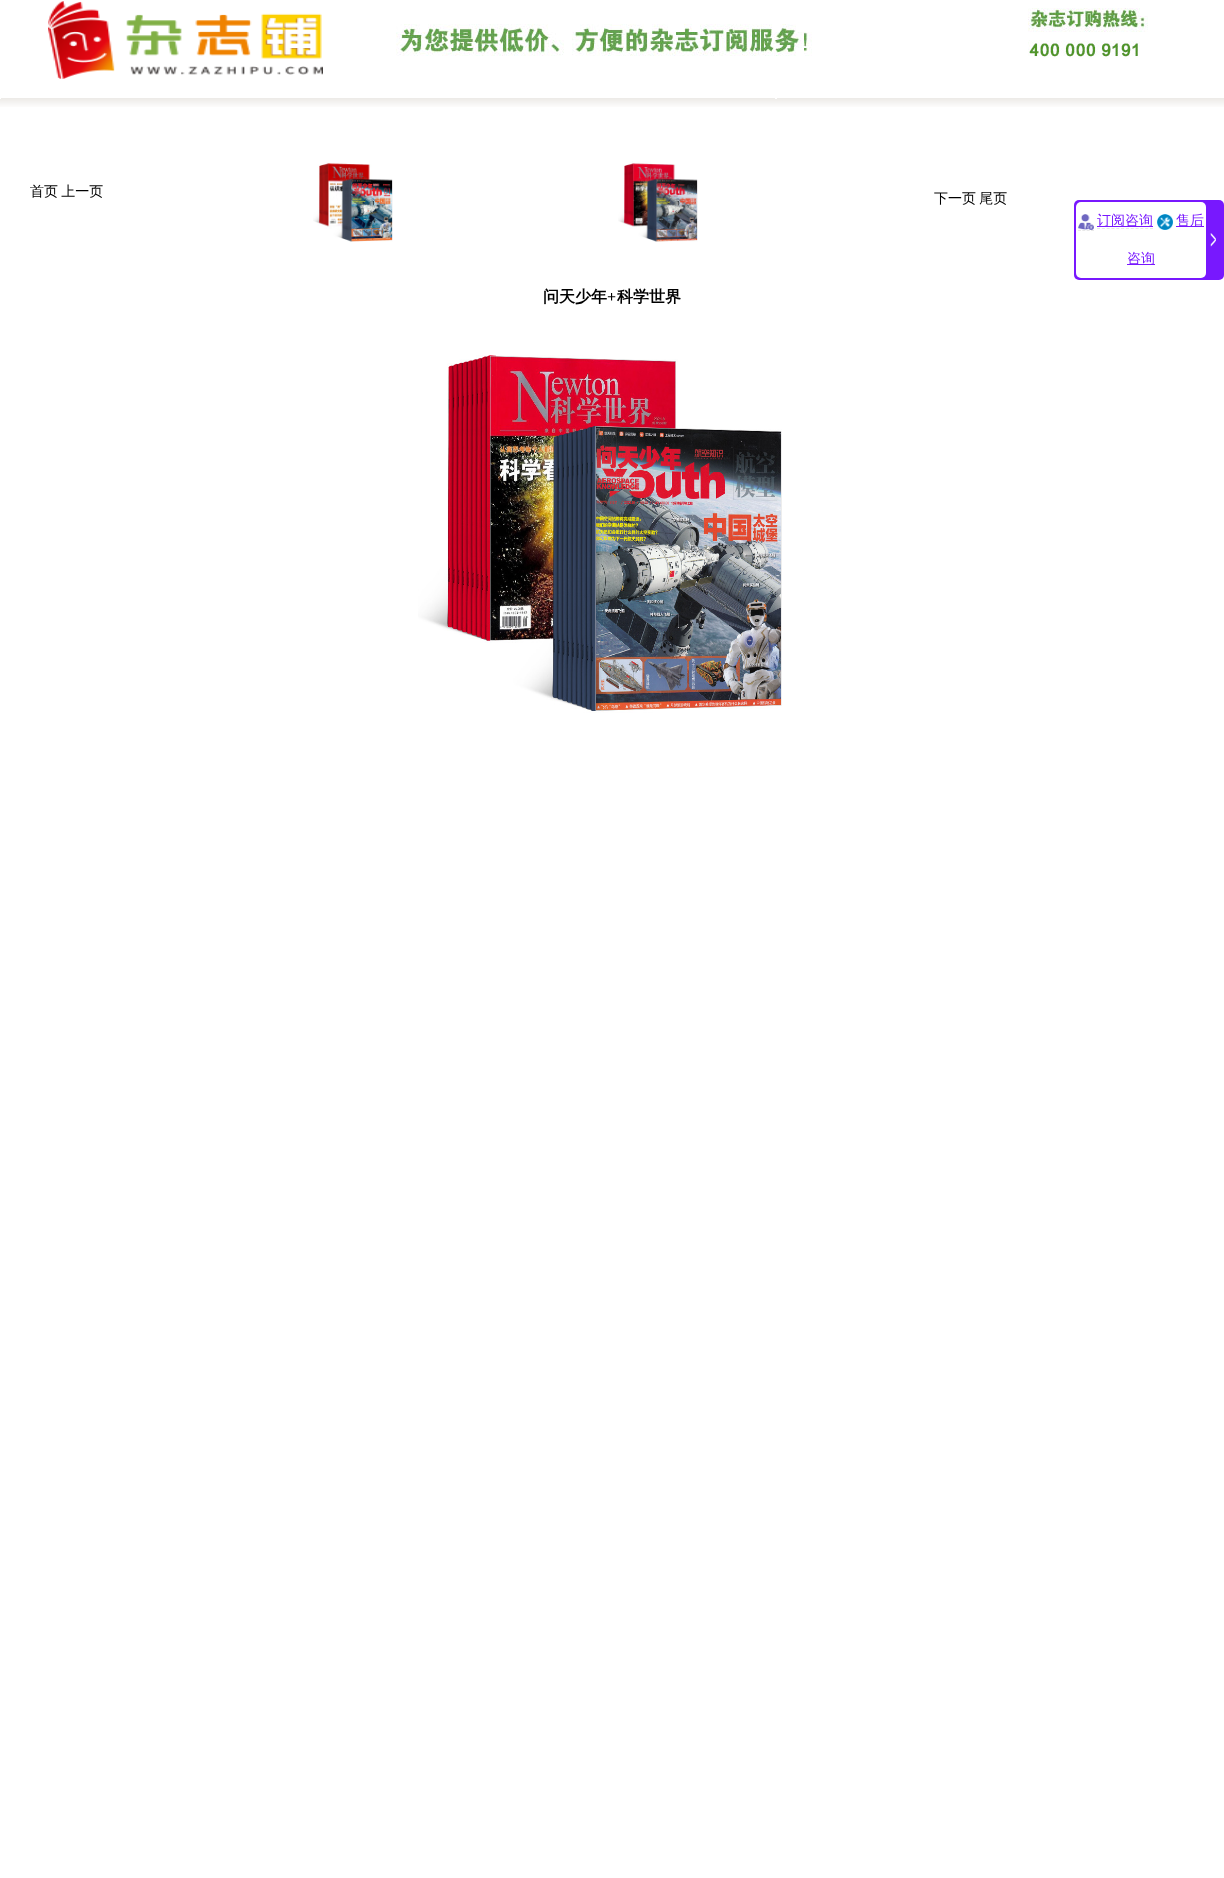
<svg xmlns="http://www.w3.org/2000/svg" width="1224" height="1878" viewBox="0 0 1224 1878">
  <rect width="100%" height="100%" fill="#fff"/>
  <image x="48" y="1" width="275" height="78" href="img/1.png"/>
  <image x="396" y="24" width="416" height="32" href="img/2.png"/>
  <image x="1028" y="8" width="120" height="51" href="img/3.png"/>
  <image x="0" y="98" width="1224" height="9" href="img/4.png"/>
  <image x="313" y="162" width="80" height="80" href="img/5.png"/>
  <image x="618" y="161" width="80" height="81" href="img/6.png"/>
  <rect x="1074" y="200" width="150" height="80" rx="5" fill="#7818fe"/>
  <rect x="1076" y="202" width="130" height="76" rx="5" fill="#fff"/>
  <path d="M1078 230.5H1094" fill="none" stroke="#e8e8e8" stroke-dasharray="3 1.33"/>
  <path d="M1097 228.5H1153" fill="none" stroke="#e8e8e8" stroke-dasharray="3 1.82"/>
  <image x="1078" y="214" width="16" height="16" href="img/7.png"/>
  <path d="M1097 226h56v1H1097z" fill="#7818fe"/>
  <image x="1157" y="214" width="16" height="16" href="img/8.png"/>
  <path d="M1176 226h28v1H1176z" fill="#7818fe"/>
  <path d="M1127 264h28v1H1127z" fill="#7818fe"/>
  <image x="1210" y="233" width="6" height="14" href="img/9.png"/>
  <image x="418" y="355" width="364" height="358" href="img/10.png"/>
  <g font-family="WenQuanYi Zen Hei" font-size="14" font-weight="500" fill="#000">
    <text x="30" y="196" word-spacing="-1">首页 上一页</text>
    <text x="934" y="203" word-spacing="-1">下一页 尾页</text>
  </g>
  <g font-family="WenQuanYi Zen Hei" font-size="14" font-weight="500" fill="#7818fe">
    <text x="1097" y="225">订阅咨询</text>
    <text x="1176" y="225">售后</text>
    <text x="1127" y="263">咨询</text>
  </g>
  <text x="543" y="302" font-family="WenQuanYi Zen Hei" font-size="16" font-weight="bold" fill="#000">问天少年</text>
  <text x="607" y="302" font-family="Liberation Serif" font-size="16" font-weight="bold" fill="#000">+</text>
  <text x="617" y="302" font-family="WenQuanYi Zen Hei" font-size="16" font-weight="bold" fill="#000">科学世界</text>
</svg>
